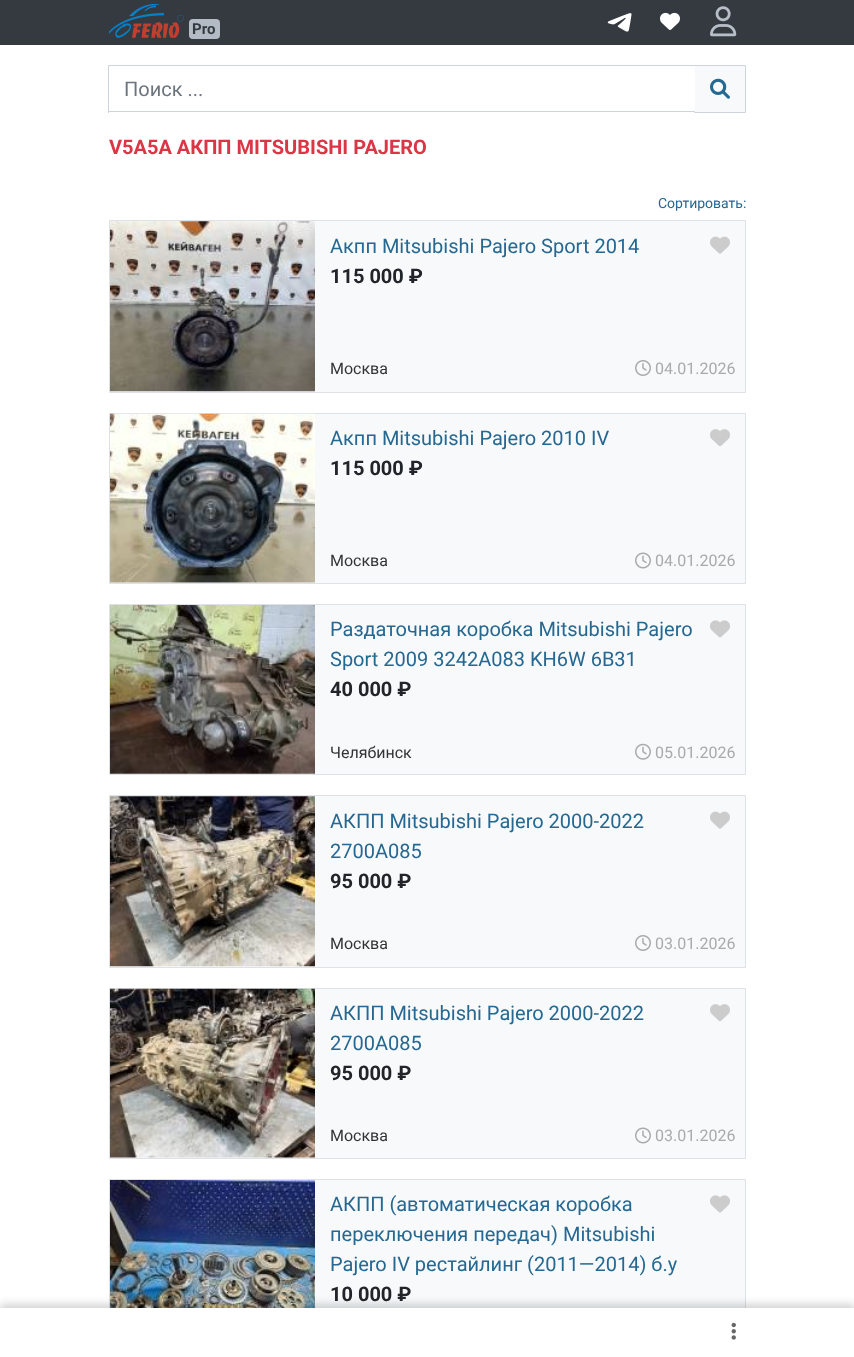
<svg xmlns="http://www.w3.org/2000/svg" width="854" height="1357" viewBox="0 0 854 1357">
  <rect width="100%" height="100%" fill="#fff"/>
  <path d="M0 0h854v45H0z" fill="#343a40"/>
  <image x="109" y="4" width="75" height="34" href="img/1.png"/>
  <rect x="189" y="19" width="31" height="20" rx="4" fill="#b4bbc4"/>
  <image x="607" y="13" width="25" height="19" href="img/2.png"/>
  <image x="660" y="12" width="20" height="18" href="img/3.png"/>
  <image x="710" y="6" width="27" height="31" href="img/4.png"/>
  <path d="M694.5 65.5h51v47H694.5z" fill="#f8f9fa" stroke="#ced4da"/>
  <path d="M694 66h1v45H694z" fill="#fff"/>
  <path d="M108 65h587v1H108z" fill="#ced4da"/>
  <path d="M108 111h587v1H108z" fill="#ced4da"/>
  <path d="M108 65h1v48H108z" fill="#ced4da"/>
  <image x="710" y="78" width="20" height="21" href="img/5.png"/>
  <path d="M109.5 220.5h636v172H109.5z" fill="#f8f9fa" stroke="#dee2e6"/>
  <image x="110" y="221" width="205" height="171" href="img/6.png"/>
  <image x="710" y="236" width="20" height="18" href="img/7.png"/>
  <image x="635" y="360" width="16" height="16" href="img/8.png"/>
  <path d="M109.5 413.5h636v170H109.5z" fill="#f8f9fa" stroke="#dee2e6"/>
  <image x="110" y="413" width="205" height="170" href="img/9.png"/>
  <image x="710" y="429" width="20" height="18" href="img/10.png"/>
  <image x="635" y="552" width="16" height="17" href="img/11.png"/>
  <path d="M109.5 604.5h636v170H109.5z" fill="#f8f9fa" stroke="#dee2e6"/>
  <image x="110" y="605" width="205" height="169" href="img/12.png"/>
  <image x="710" y="620" width="20" height="18" href="img/13.png"/>
  <image x="635" y="743" width="16" height="17" href="img/14.png"/>
  <path d="M109.5 795.5h636v172H109.5z" fill="#f8f9fa" stroke="#dee2e6"/>
  <image x="110" y="796" width="205" height="171" href="img/15.png"/>
  <image x="710" y="811" width="20" height="18" href="img/7.png"/>
  <image x="635" y="935" width="16" height="16" href="img/8.png"/>
  <path d="M109.5 988.5h636v170H109.5z" fill="#f8f9fa" stroke="#dee2e6"/>
  <image x="110" y="988" width="205" height="170" href="img/16.png"/>
  <image x="710" y="1004" width="20" height="18" href="img/10.png"/>
  <image x="635" y="1127" width="16" height="17" href="img/11.png"/>
  <path d="M315 1180h430v128H315z" fill="#f8f9fa"/>
  <path d="M109.5 1179.5h636v175H109.5z" fill="none" stroke="#dee2e6"/>
  <image x="110" y="1180" width="205" height="128" href="img/17.png"/>
  <image x="710" y="1195" width="20" height="18" href="img/13.png"/>
  <path d="M0 1305h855v50H0z" fill="#0000001a" filter="blur(5px)"/>
  <path d="M0 1305h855v50H0z" fill="#0000001a" filter="blur(5px)"/>
  <path d="M0 1308h854v49H0z" fill="#fff"/>
  <image x="731" y="1322" width="5" height="18" href="img/18.png"/>
  <text x="192" y="34" font-family="Roboto" font-size="15" font-weight="bold" fill="#353a3f">Pro</text>
  <text x="124" y="96" font-family="Roboto" font-size="20" fill="#6c757d">Поиск ...</text>
  <text x="109" y="154" font-family="Roboto" font-size="20" font-weight="bold" fill="#dc3545">V5A5A АКПП MITSUBISHI PAJERO</text>
  <text x="658" y="208" font-family="Roboto" font-size="14" fill="#256892">Сортировать:</text>
  <text x="330" y="253" font-family="Roboto" font-size="20" fill="#256892">Акпп Mitsubishi Pajero Sport 2014</text>
  <text x="330" y="283" font-family="Roboto" font-size="20" font-weight="bold" fill="#212529">115 000 ₽</text>
  <text x="330" y="374" font-family="Roboto" font-size="16" fill="#333">Москва</text>
  <text x="655" y="374" font-family="Roboto" font-size="16" fill="#aaa">04.01.2026</text>
  <text x="330" y="445" font-family="Roboto" font-size="20" fill="#256892">Акпп Mitsubishi Pajero 2010 IV</text>
  <text x="330" y="475" font-family="Roboto" font-size="20" font-weight="bold" fill="#212529">115 000 ₽</text>
  <text x="330" y="566" font-family="Roboto" font-size="16" fill="#333">Москва</text>
  <text x="655" y="566" font-family="Roboto" font-size="16" fill="#aaa">04.01.2026</text>
  <g font-family="Roboto" font-size="20" fill="#256892">
    <text x="330" y="636">Раздаточная коробка Mitsubishi Pajero</text>
    <text x="330" y="666">Sport 2009 3242A083 KH6W 6B31</text>
  </g>
  <text x="330" y="696" font-family="Roboto" font-size="20" font-weight="bold" fill="#212529">40 000 ₽</text>
  <text x="330" y="758" font-family="Roboto" font-size="16" fill="#333">Челябинск</text>
  <text x="655" y="758" font-family="Roboto" font-size="16" fill="#aaa">05.01.2026</text>
  <g font-family="Roboto" font-size="20" fill="#256892">
    <text x="330" y="828">АКПП Mitsubishi Pajero 2000-2022</text>
    <text x="330" y="858">2700A085</text>
  </g>
  <text x="330" y="888" font-family="Roboto" font-size="20" font-weight="bold" fill="#212529">95 000 ₽</text>
  <text x="330" y="949" font-family="Roboto" font-size="16" fill="#333">Москва</text>
  <text x="655" y="949" font-family="Roboto" font-size="16" fill="#aaa">03.01.2026</text>
  <g font-family="Roboto" font-size="20" fill="#256892">
    <text x="330" y="1020">АКПП Mitsubishi Pajero 2000-2022</text>
    <text x="330" y="1050">2700A085</text>
  </g>
  <text x="330" y="1080" font-family="Roboto" font-size="20" font-weight="bold" fill="#212529">95 000 ₽</text>
  <text x="330" y="1141" font-family="Roboto" font-size="16" fill="#333">Москва</text>
  <text x="655" y="1141" font-family="Roboto" font-size="16" fill="#aaa">03.01.2026</text>
  <g font-family="Roboto" font-size="20" fill="#256892">
    <text x="330" y="1211">АКПП (автоматическая коробка</text>
    <text x="330" y="1241">переключения передач) Mitsubishi</text>
    <text x="330" y="1271">Pajero IV рестайлинг (2011—2014) б.у</text>
  </g>
  <text x="330" y="1301" font-family="Roboto" font-size="20" font-weight="bold" fill="#212529">10 000 ₽</text>
</svg>
